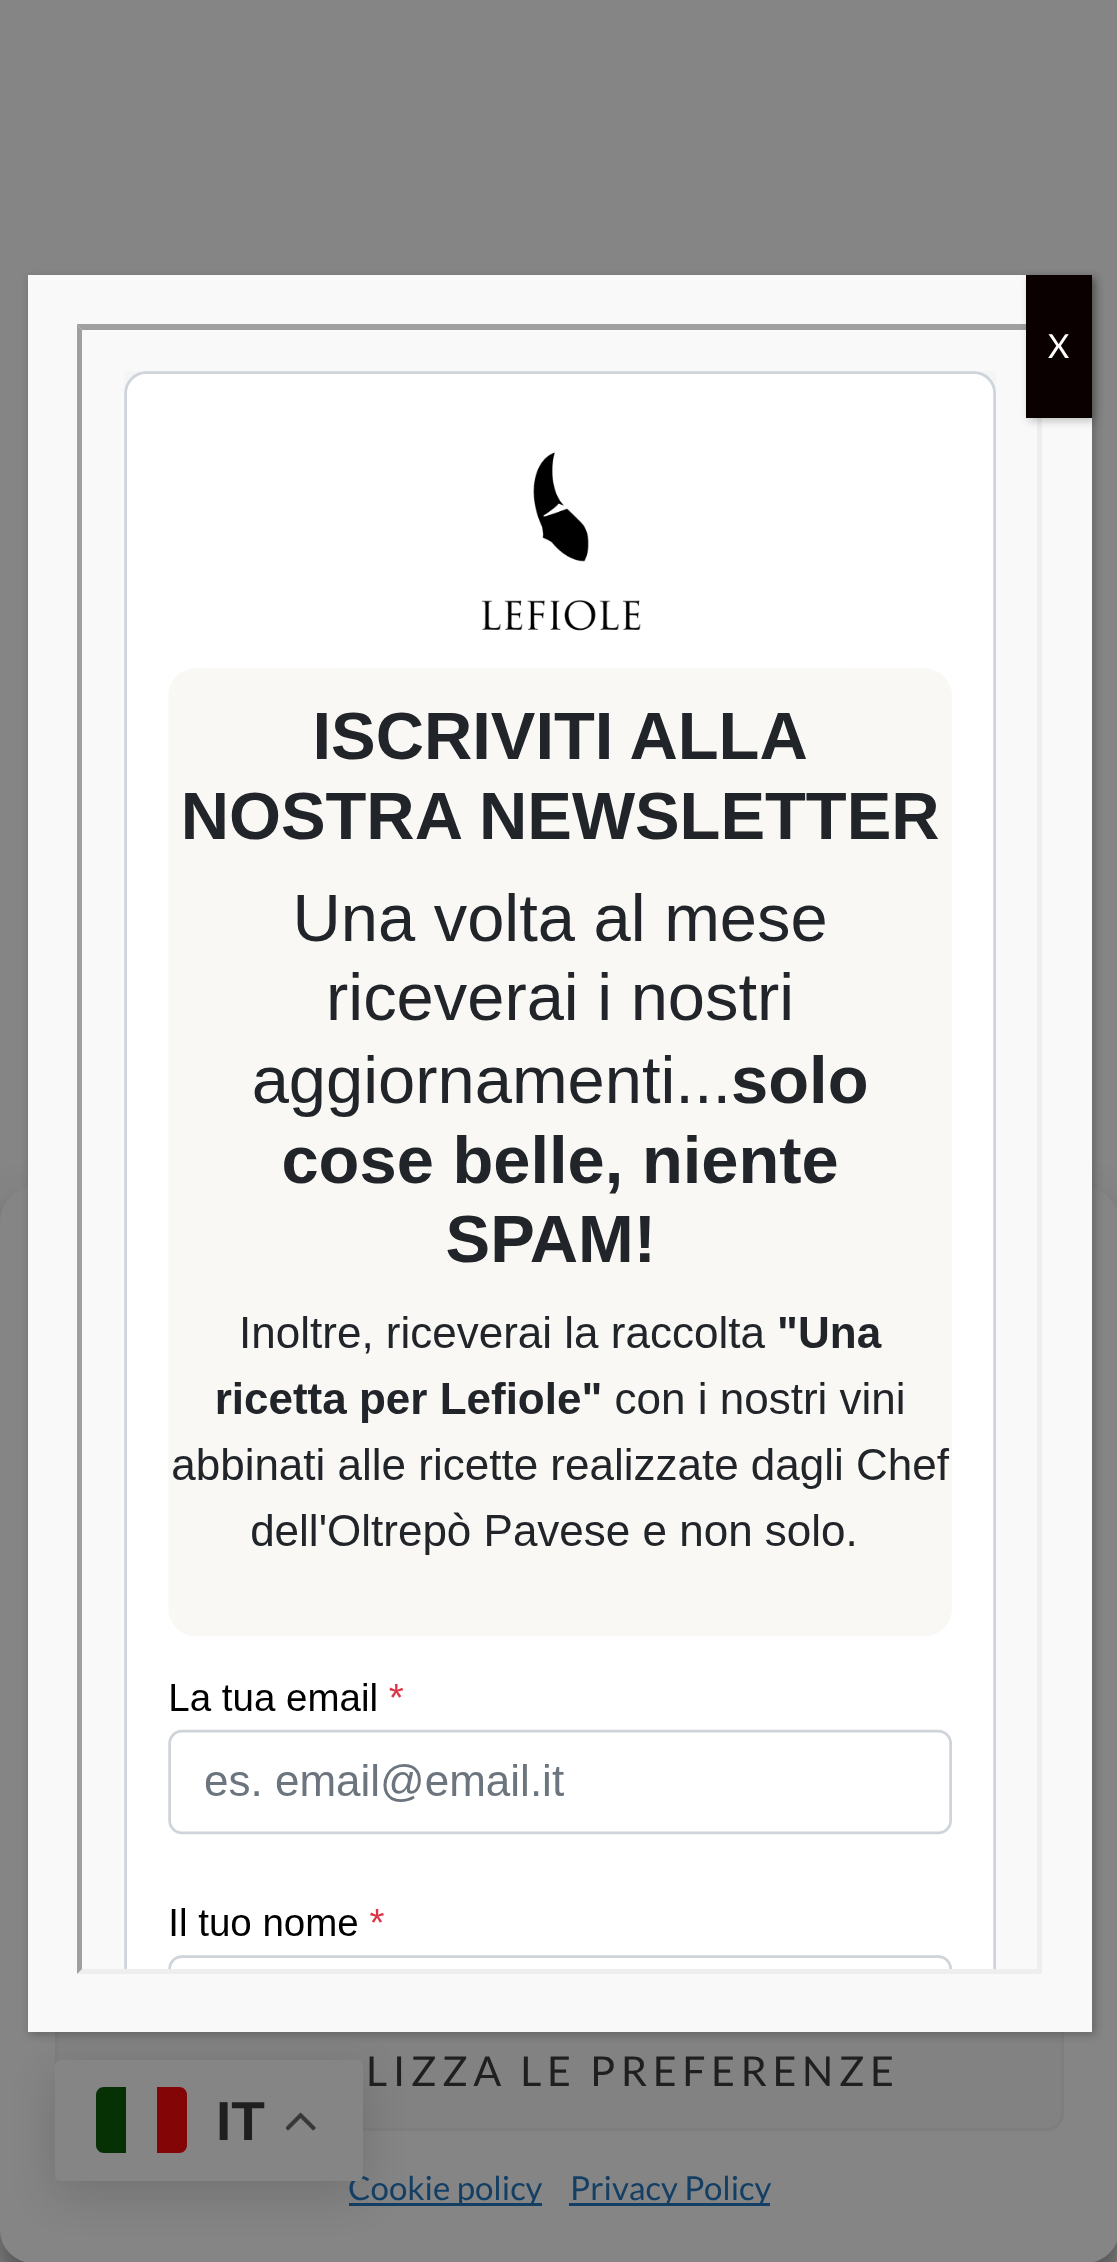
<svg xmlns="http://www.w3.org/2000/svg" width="1117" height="2262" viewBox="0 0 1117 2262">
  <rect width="100%" height="100%" fill="#858585"/>
  <rect y="1205" width="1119" height="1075" rx="33" fill="#0505053b" filter="blur(8px)"/>
  <rect y="1216" width="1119" height="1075" rx="33" fill="#05050530" filter="blur(27.5px)"/>
  <rect y="1188" width="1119" height="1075" rx="33" fill="#858585"/>
  <rect x="56.5" y="2009.5" width="1006" height="120" rx="15.5" fill="#828282" stroke="#7e7e7e" stroke-width="3"/>
  <path d="M30 278h1065v1757H30z" fill="#0202023b" filter="blur(4px)"/>
  <path d="M349 2203h193v3H349z" fill="#143f64"/>
  <rect x="55" y="2074" width="308" height="121" rx="6" fill="#05050526" filter="blur(20.5px)"/>
  <path d="M28 275h1064v1757H28z" fill="#f9f9f9"/>
  <path d="M77 324H1042L1037 330H82Z" fill="#9f9f9f"/>
  <path d="M1042 324V1974L1037 1969V330Z" fill="#eee"/>
  <path d="M1042 1974H77L82 1969H1037Z" fill="#eee"/>
  <path d="M77 1974V324L82 330V1969Z" fill="#9f9f9f"/>
  <image x="124" y="371" width="872" height="1598" href="img/1.png"/>
  <path d="M1029 278h66v143H1029z" fill="#0202023b" filter="blur(4px)"/>
  <path d="M1026 275h66v143H1026z" fill="#0a0000"/>
  <path d="M569 2203h201v3H569z" fill="#143f64"/>
  <text x="1048" y="358" font-family="Lato" font-size="33" fill="#fff">X</text>
  <text x="366" y="2086" font-family="Lato" font-size="41.25" letter-spacing="5.5" fill="#1f1f1f">LIZZA LE PREFERENZE</text>
  <text x="348" y="2200" font-family="Lato" font-size="33" fill="#143f64">Cookie policy</text>
  <rect x="55" y="2060" width="308" height="121" rx="6" fill="#858585"/>
  <image x="286" y="2112" width="30" height="19" href="img/2.png"/>
  <text x="216" y="2140" font-family="Liberation Sans" font-size="55" font-weight="bold" fill="#1f1f1f">IT</text>
  <path d="M157 2087H179C183.5 2087 187 2090.5 187 2095V2145C187 2149.5 183.5 2153 179 2153H157Z" fill="#830505"/>
  <path d="M104 2087H126V2153H104C99.5 2153 96 2149.5 96 2145V2095C96 2090.5 99.5 2087 104 2087Z" fill="#053105"/>
  <text x="570" y="2200" font-family="Lato" font-size="33" fill="#143f64">Privacy Policy</text>
</svg>
